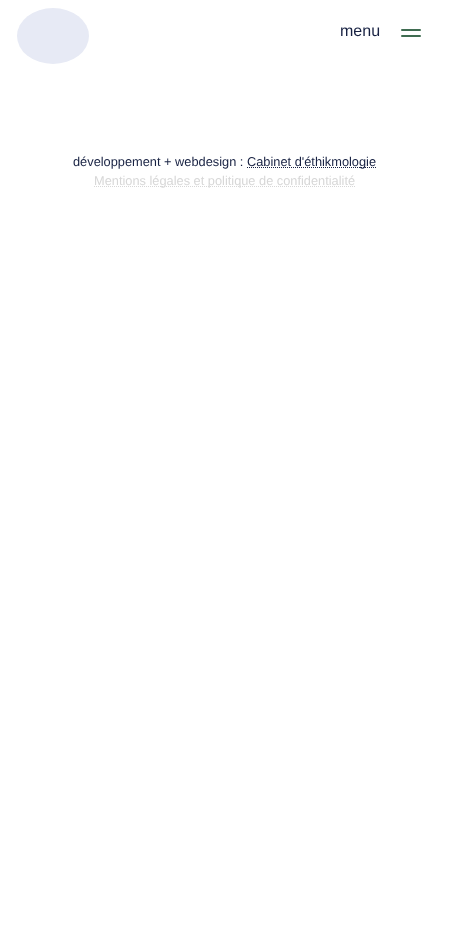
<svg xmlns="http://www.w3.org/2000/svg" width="449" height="938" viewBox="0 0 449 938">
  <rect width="100%" height="100%" fill="#fff"/>
  <ellipse cx="53" cy="36" rx="36" ry="28" fill="#e7eaf5"/>
  <rect x="401" y="29" width="20" height="2" rx="1" fill="#3f6c51"/>
  <rect x="401" y="35" width="20" height="2" rx="1" fill="#3f6c51"/>
  <path d="M247 167.5H376" fill="none" stroke="#172142" stroke-dasharray="1 1"/>
  <path d="M94 186.5H355" fill="none" stroke="#d7d7d7" stroke-dasharray="1 1"/>
  <text x="340" y="36" font-family="Liberation Sans" font-size="16" fill="#172142">menu</text>
  <g font-family="Liberation Sans" font-size="12.8" fill="#172142">
    <text x="73" y="166">développement + webdesign :</text>
    <text x="247" y="166">Cabinet d'éthikmologie</text>
  </g>
  <text x="94" y="185" font-family="Liberation Sans" font-size="12.8" fill="#d7d7d7">Mentions légales et politique de confidentialité</text>
</svg>
